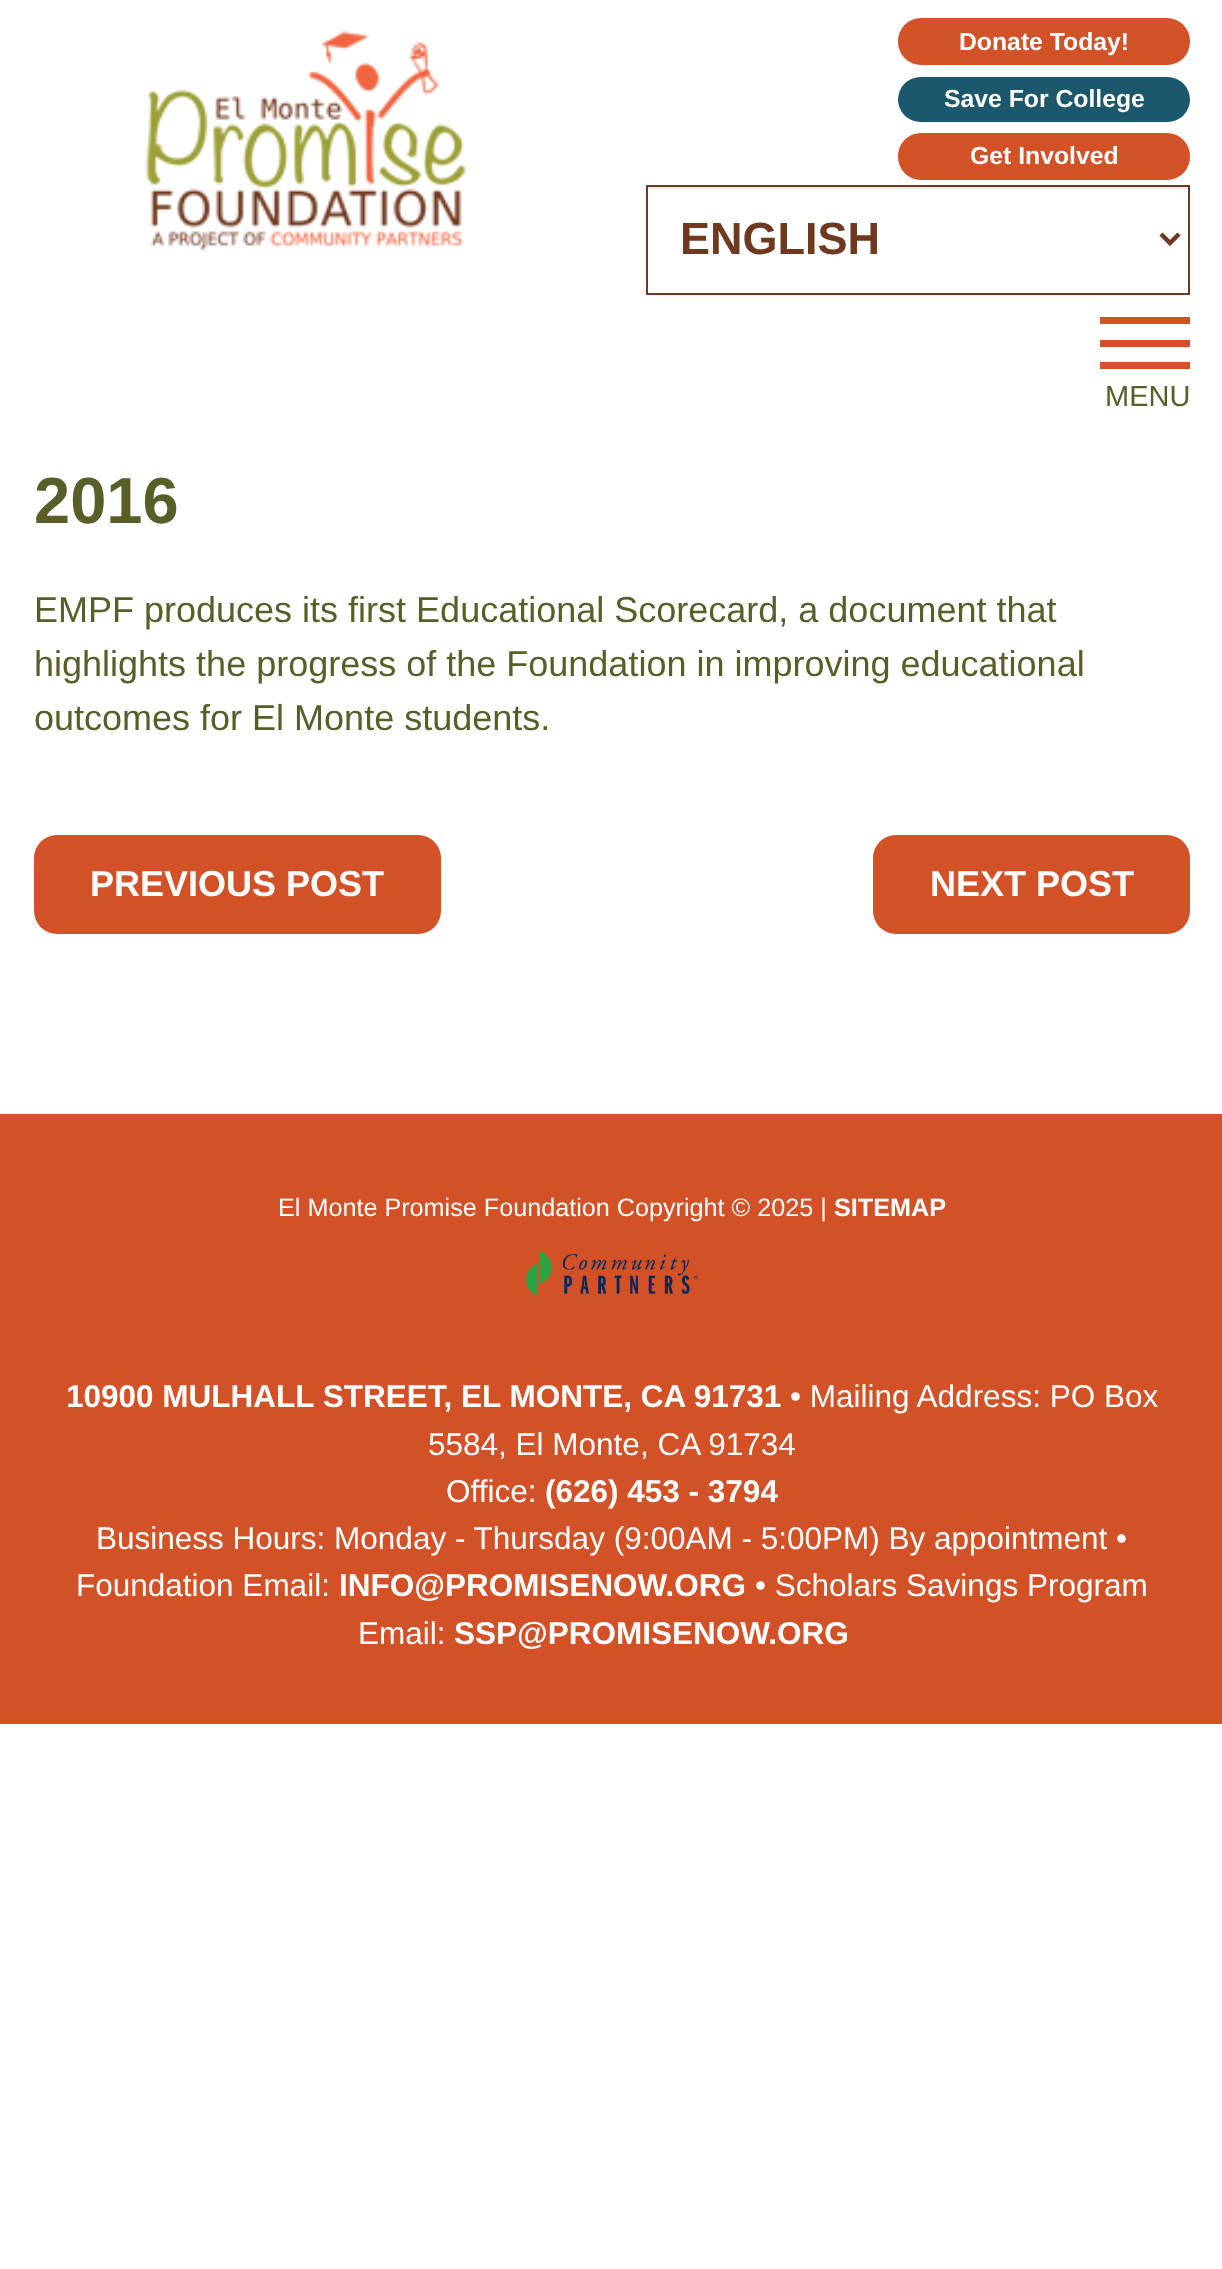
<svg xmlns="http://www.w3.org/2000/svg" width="1222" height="2269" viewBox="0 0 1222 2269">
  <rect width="100%" height="100%" fill="#fff"/>
  <image x="145" y="31" width="322" height="220" href="img/1.png"/>
  <rect x="898" y="18" width="292" height="47" rx="23" fill="#d35127"/>
  <rect x="898" y="77" width="292" height="45" rx="22.5" fill="#1c576c"/>
  <rect x="898" y="133" width="292" height="47" rx="23" fill="#d35127"/>
  <path d="M648 187h540v2H648z" fill="#ececec"/>
  <path d="M647 186h542v108H647z" fill="none" stroke="#6f391f" stroke-width="2"/>
  <path d="M1161 234L1170 243L1179 234" fill="none" stroke="#6f391f" stroke-width="4.5"/>
  <path d="M1100 317h90v7H1100z" fill="#d35127"/>
  <path d="M1100 340h90v7H1100z" fill="#d35127"/>
  <path d="M1100 362h90v7H1100z" fill="#d35127"/>
  <rect x="34" y="835" width="407" height="99" rx="23" fill="#d35127"/>
  <rect x="873" y="835" width="317" height="99" rx="23" fill="#d35127"/>
  <path d="M0 1114h1222v610H0z" fill="#d35127"/>
  <image x="525" y="1251" width="174" height="45" href="img/2.png"/>
  <g font-family="Liberation Sans" font-size="24.75" font-weight="bold" fill="#fff">
    <text x="959" y="50">Donate Today!</text>
    <text x="944" y="107">Save For College</text>
    <text x="970" y="164">Get Involved</text>
  </g>
  <text x="680" y="254" font-family="Liberation Sans" font-size="45" font-weight="bold" fill="#6f391f">ENGLISH</text>
  <text x="1105" y="406" font-family="Liberation Sans" font-size="29" fill="#595d28">MENU</text>
  <text x="34" y="523" font-family="Liberation Sans" font-size="65" font-weight="bold" fill="#595d28">2016</text>
  <g font-family="Liberation Sans" font-size="36" fill="#595d28">
    <text x="34" y="622">EMPF produces its first Educational Scorecard, a document that</text>
    <text x="34" y="676">highlights the progress of the Foundation in improving educational</text>
    <text x="34" y="730">outcomes for El Monte students.</text>
  </g>
  <g font-family="Liberation Sans" font-size="36" font-weight="bold" fill="#fff">
    <text x="90" y="896">PREVIOUS POST</text>
    <text x="930" y="896">NEXT POST</text>
  </g>
  <text x="278" y="1216" font-family="Liberation Sans" font-size="25.2" fill="#fff">El Monte Promise Foundation Copyright © 2025 |</text>
  <text x="834" y="1216" font-family="Liberation Sans" font-size="25.2" font-weight="bold" fill="#fff">SITEMAP</text>
  <text x="66" y="1407" font-family="Liberation Sans" font-size="31.5" font-weight="bold" fill="#fff">10900 MULHALL STREET, EL MONTE, CA 91731</text>
  <g font-family="Liberation Sans" font-size="31.5" fill="#fff">
    <text x="790" y="1407">• Mailing Address: PO Box</text>
    <text x="428" y="1455">5584, El Monte, CA 91734</text>
    <text x="446" y="1502">Office:</text>
  </g>
  <text x="545" y="1502" font-family="Liberation Sans" font-size="31.5" font-weight="bold" fill="#fff">(626) 453 - 3794</text>
  <g font-family="Liberation Sans" font-size="31.5" fill="#fff">
    <text x="96" y="1549">Business Hours: Monday - Thursday (9:00AM - 5:00PM) By appointment •</text>
    <text x="76" y="1596">Foundation Email:</text>
  </g>
  <text x="339" y="1596" font-family="Liberation Sans" font-size="31.5" font-weight="bold" fill="#fff">INFO@PROMISENOW.ORG</text>
  <g font-family="Liberation Sans" font-size="31.5" fill="#fff">
    <text x="755" y="1596">• Scholars Savings Program</text>
    <text x="358" y="1644">Email:</text>
  </g>
  <text x="454" y="1644" font-family="Liberation Sans" font-size="31.5" font-weight="bold" fill="#fff">SSP@PROMISENOW.ORG</text>
</svg>
